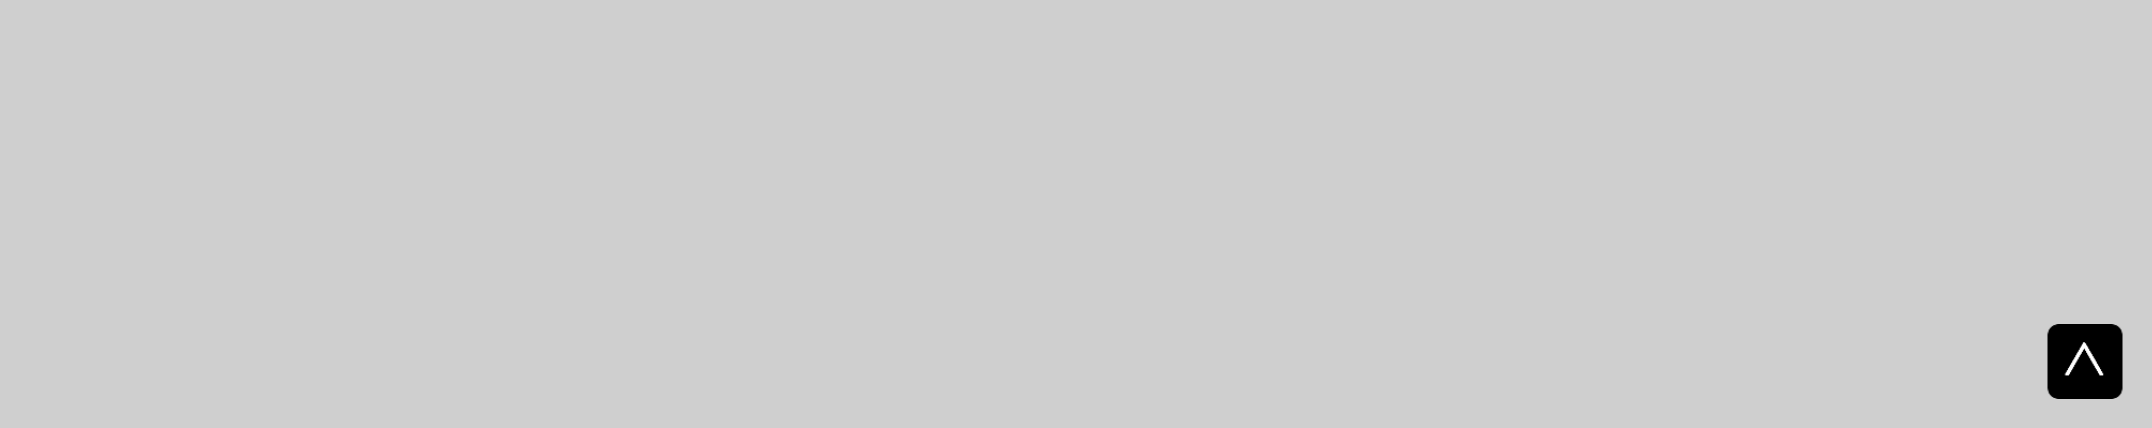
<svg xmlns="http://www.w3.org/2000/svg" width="2152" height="428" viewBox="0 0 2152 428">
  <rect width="100%" height="100%" fill="#cfcfcf"/>
  <image x="2047" y="324" width="76" height="75" href="img/1.png"/>
</svg>
